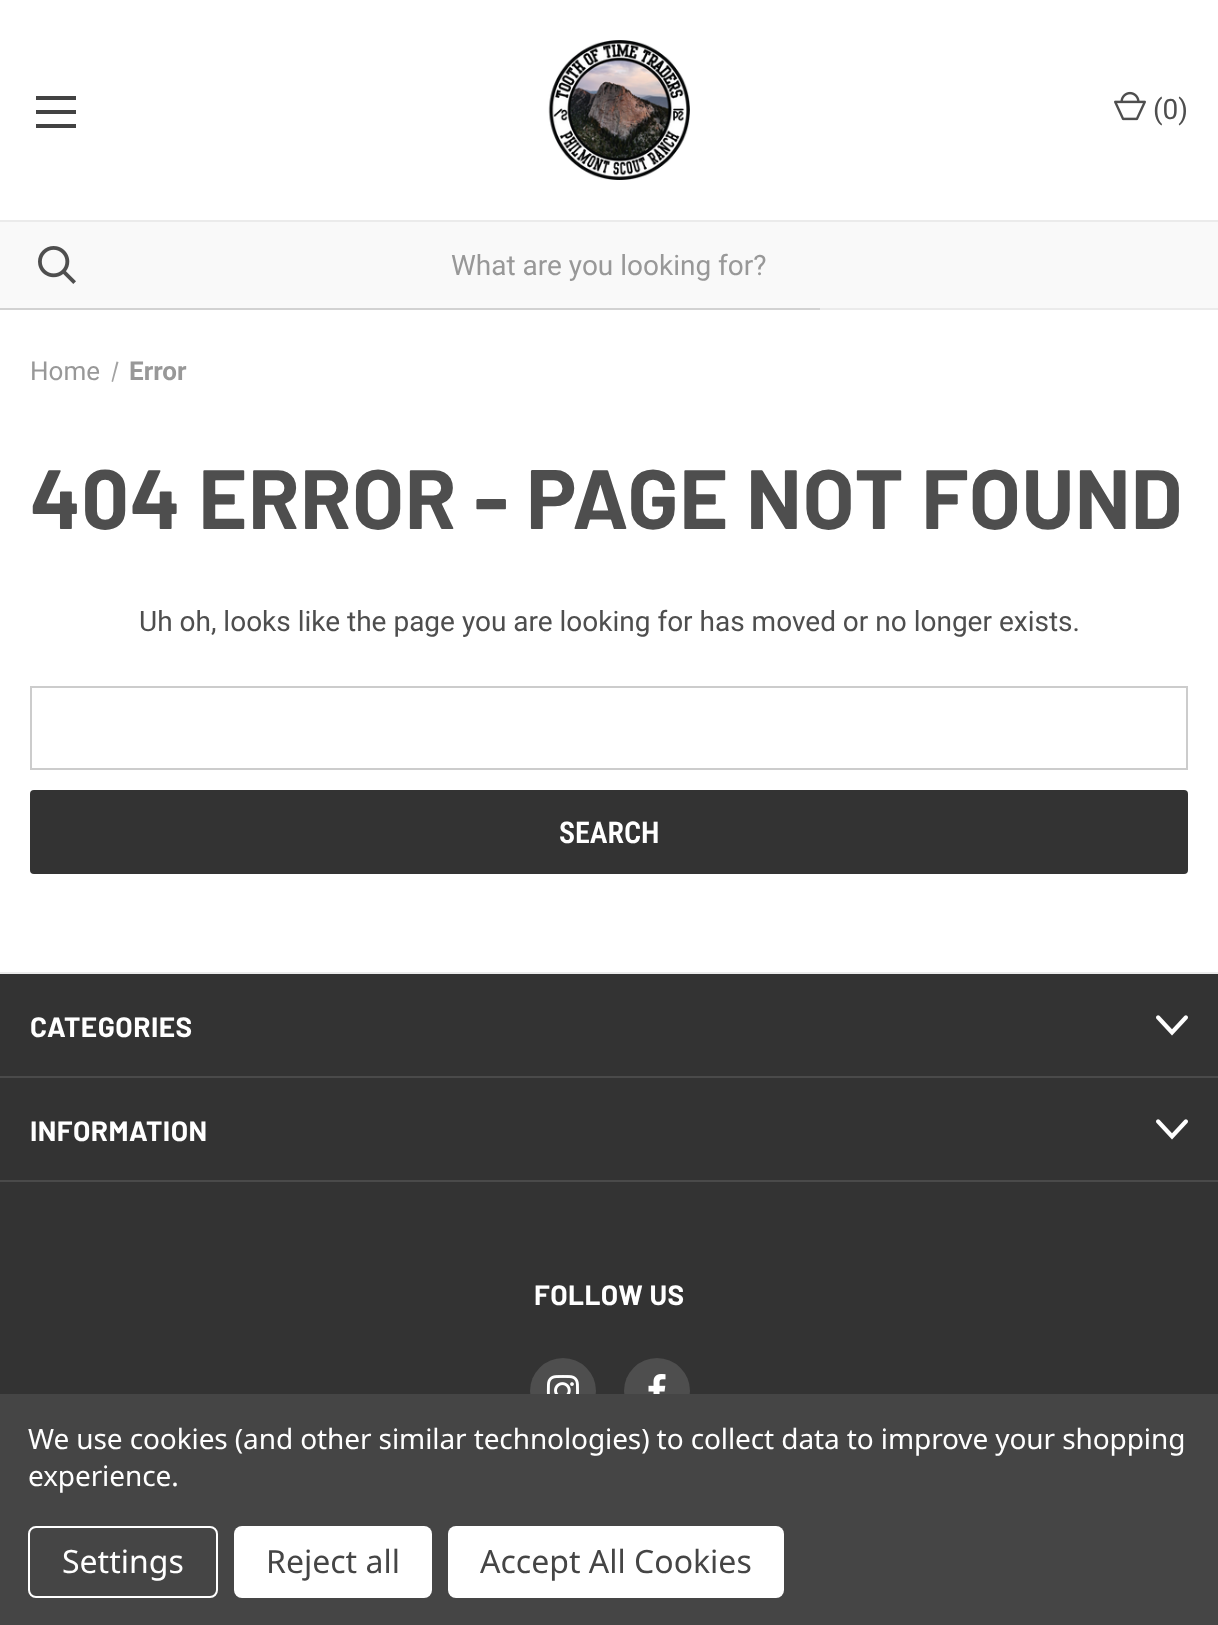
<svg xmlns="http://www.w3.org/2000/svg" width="1218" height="1625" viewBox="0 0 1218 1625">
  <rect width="100%" height="100%" fill="#fff"/>
  <path d="M820 308h398v2H820z" fill="#ebebeb"/>
  <path d="M36 110h40v4H36z" fill="#424242"/>
  <path d="M36 96h40v4H36z" fill="#424242"/>
  <path d="M36 124h40v4H36z" fill="#424242"/>
  <image x="548" y="40" width="142" height="140" href="img/1.png"/>
  <image x="1114" y="91" width="32" height="30" href="img/2.png"/>
  <path d="M0 222h1218v86H0z" fill="#f9f9f9"/>
  <image x="38" y="246" width="38" height="38" href="img/3.png"/>
  <path d="M0 220h1218v2H0z" fill="#ebebeb"/>
  <path d="M0 308h820v2H0z" fill="#d2d2d2"/>
  <path d="M116.5 361.5L118.5 362L113 382L111.5 381.5Z" fill="#a3a3a3"/>
  <path d="M31 687h1156v82H31z" fill="none" stroke="#ccc" stroke-width="2"/>
  <rect x="30" y="790" width="1158" height="84" rx="4" fill="#333"/>
  <path d="M0 974h1218v420H0z" fill="#333"/>
  <path d="M0 972h1218v2H0z" fill="#ebebeb"/>
  <path d="M0 1076h1218v2H0z" fill="#4a4a4a"/>
  <image x="1156" y="1015" width="32" height="21" href="img/4.png"/>
  <path d="M0 1180h1218v2H0z" fill="#4a4a4a"/>
  <image x="1156" y="1119" width="32" height="21" href="img/4.png"/>
  <circle cx="563" cy="1391" r="33" fill="#4e4e4e"/>
  <image x="546" y="1375" width="33" height="19" href="img/5.png"/>
  <circle cx="657" cy="1391" r="33" fill="#4e4e4e"/>
  <image x="648" y="1374" width="18" height="20" href="img/6.png"/>
  <path d="M0 1394h1218v231H0z" fill="#454545"/>
  <rect x="29" y="1527" width="188" height="70" rx="7" fill="none" stroke="#fff" stroke-width="2"/>
  <rect x="234" y="1526" width="198" height="72" rx="8" fill="#fff"/>
  <rect x="448" y="1526" width="336" height="72" rx="8" fill="#fff"/>
  <text x="1153" y="119" font-family="Roboto" font-size="28" fill="#4e4e4e">(0)</text>
  <text x="451" y="275" font-family="Roboto" font-size="28" fill="#989898">What are you looking for?</text>
  <text x="30" y="380" font-family="Roboto" font-size="26" fill="#989898">Home</text>
  <text x="129" y="380" font-family="Roboto" font-size="26" font-weight="bold" fill="#989898">Error</text>
  <text x="30" y="529" font-family="Barlow" font-size="84" font-weight="bold" letter-spacing="0.5" fill="#4e4e4e">404 ERROR - PAGE NOT FOUND</text>
  <text x="139" y="631" font-family="Roboto" font-size="28" fill="#4e4e4e">Uh oh, looks like the page you are looking for has moved or no longer exists.</text>
  <text x="559" y="843" font-family="Roboto Condensed" font-size="30" font-weight="600" fill="#fff">SEARCH</text>
  <g font-family="Barlow" font-size="28" font-weight="bold" letter-spacing="0.5" fill="#fff">
    <text x="30" y="1037">CATEGORIES</text>
    <text x="30" y="1141">INFORMATION</text>
    <text x="534" y="1305">FOLLOW US</text>
  </g>
  <g font-family="Noto Sans" font-size="28" letter-spacing="-0.1" fill="#fff">
    <text x="28" y="1449">We use cookies (and other similar technologies) to collect data to improve your shopping</text>
    <text x="28" y="1486">experience.</text>
  </g>
  <text x="62" y="1573" font-family="Noto Sans" font-size="32" fill="#fff">Settings</text>
  <g font-family="Noto Sans" font-size="32" fill="#454545">
    <text x="266" y="1573">Reject all</text>
    <text x="480" y="1573">Accept All Cookies</text>
  </g>
</svg>
